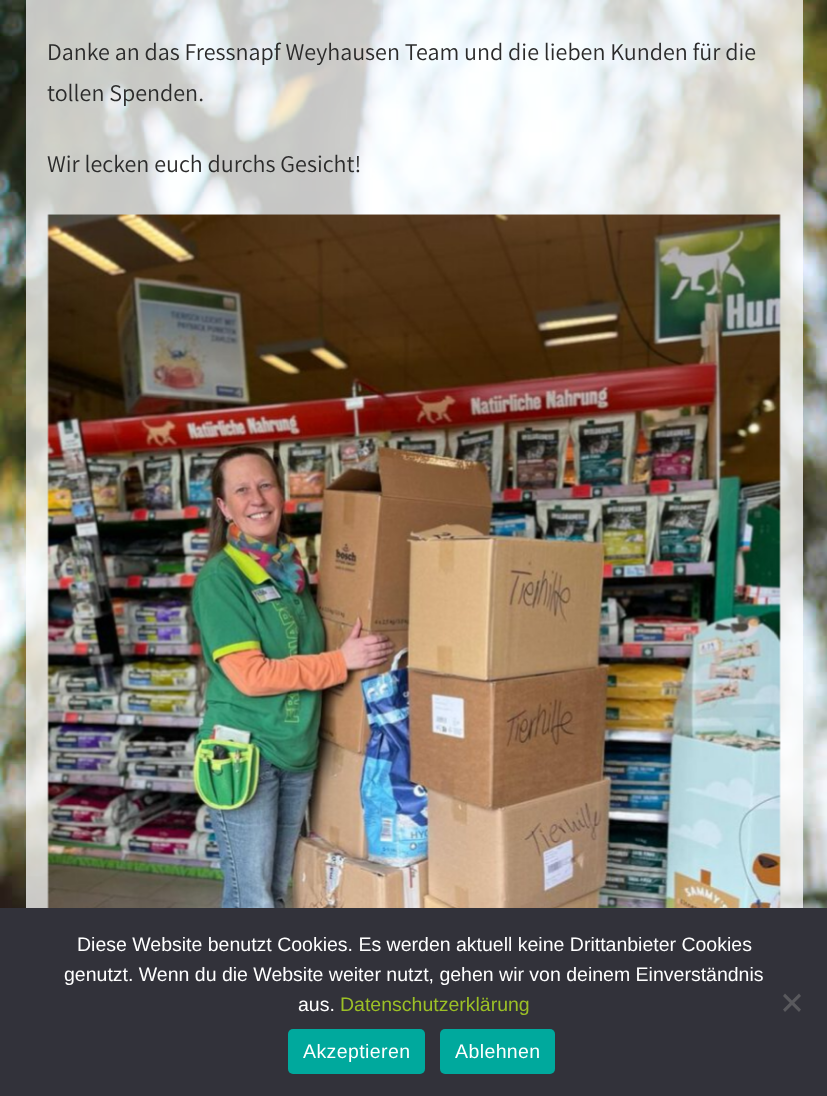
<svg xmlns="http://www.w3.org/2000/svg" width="827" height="1096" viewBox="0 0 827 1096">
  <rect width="100%" height="100%" fill="#fff"/>
  <image x="0" y="0" width="827" height="908" href="img/1.png"/>
  <image x="47" y="214" width="734" height="694" href="img/2.png"/>
  <path d="M0 908h827v188H0z" fill="#32323a"/>
  <path d="M799 993.5L801 996L785 1012L783 1009.5Z" fill="#59595d"/>
  <path d="M783 996L785 993.5L801 1009.5L799 1012Z" fill="#59595d"/>
  <rect x="288" y="1029" width="137" height="45" rx="5" fill="#00a99d"/>
  <rect x="440" y="1029" width="115" height="45" rx="5" fill="#00a99d"/>
  <g font-family="Assistant" font-size="24" fill="#2b2b2b">
    <text x="47" y="60">Danke an das Fressnapf Weyhausen Team und die lieben Kunden für die</text>
    <text x="47" y="101">tollen Spenden.</text>
    <text x="47" y="172">Wir lecken euch durchs Gesicht!</text>
  </g>
  <g font-family="Liberation Sans" font-size="19.5" fill="#fff">
    <text x="77" y="951">Diese Website benutzt Cookies. Es werden aktuell keine Drittanbieter Cookies</text>
    <text x="64" y="981">genutzt. Wenn du die Website weiter nutzt, gehen wir von deinem Einverständnis</text>
    <text x="298" y="1011">aus.</text>
  </g>
  <text x="340" y="1011" font-family="Liberation Sans" font-size="19.5" fill="#9cc026">Datenschutzerklärung</text>
  <g font-family="Liberation Sans" font-size="19.5" letter-spacing="0.4" fill="#fff">
    <text x="303" y="1058">Akzeptieren</text>
    <text x="455" y="1058">Ablehnen</text>
  </g>
</svg>
